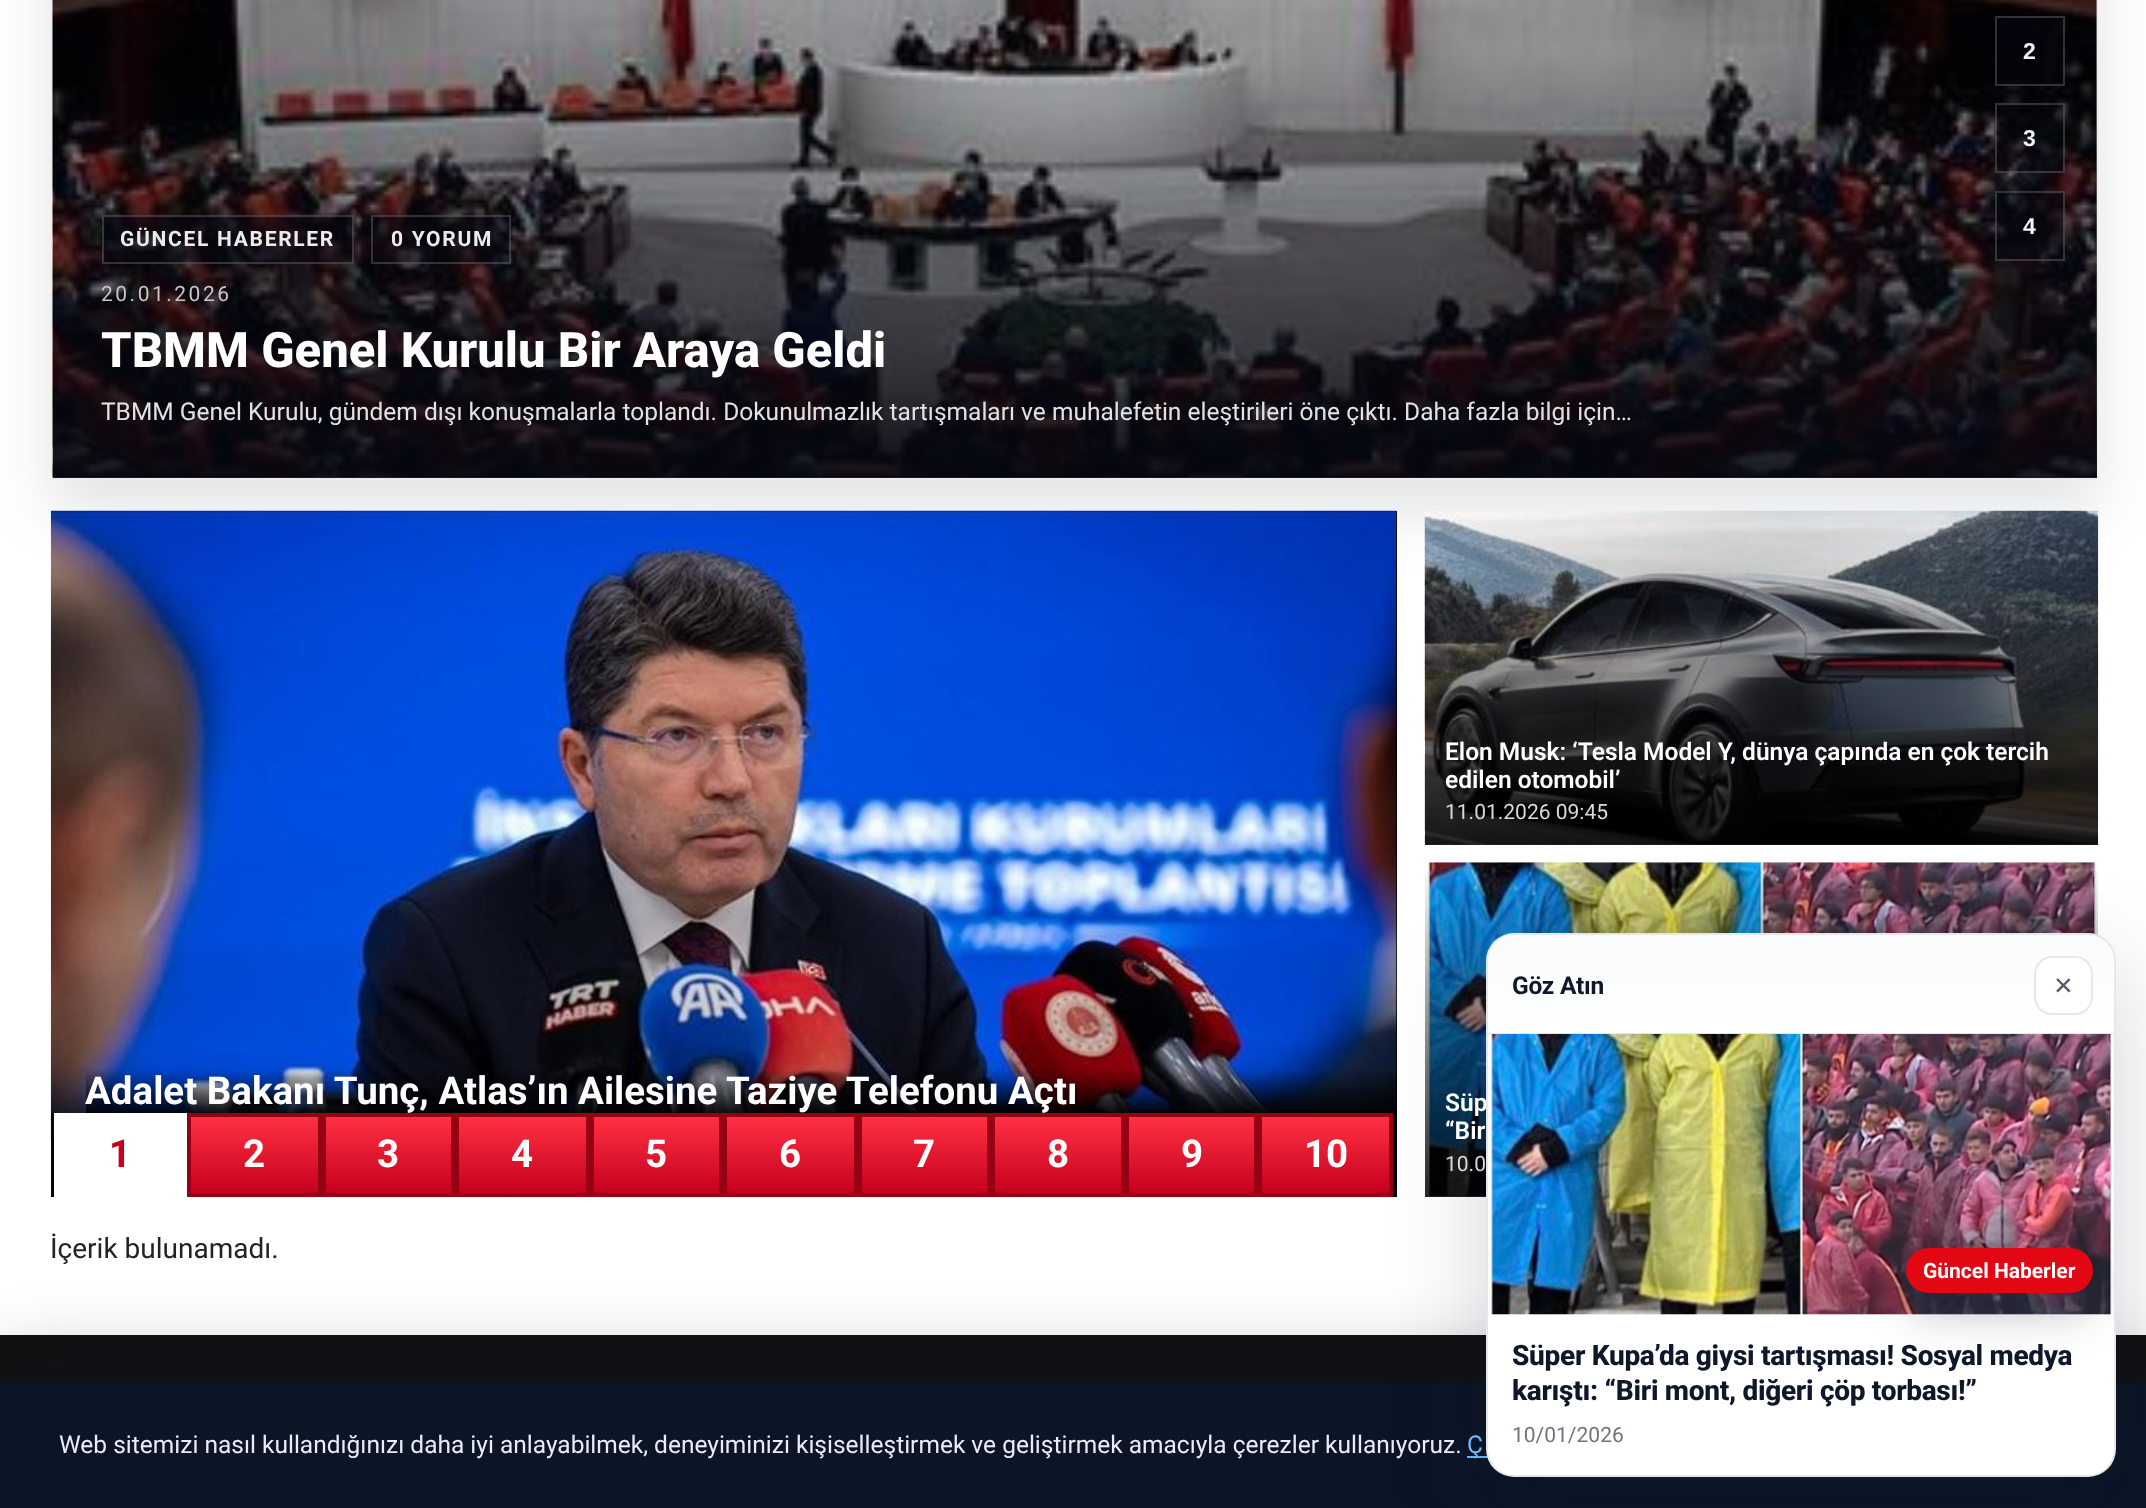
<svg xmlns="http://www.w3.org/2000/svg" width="2146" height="1508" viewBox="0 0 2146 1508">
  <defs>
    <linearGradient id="g1" gradientUnits="userSpaceOnUse" x1="1075" y1="478" x2="1075" y2="-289"><stop offset="0" stop-color="#050710" stop-opacity="0.92"/><stop offset="0.55" stop-color="#050710" stop-opacity="0.2"/><stop offset="1" stop-color="#050710" stop-opacity="0"/></linearGradient>
    <linearGradient id="g2" gradientUnits="userSpaceOnUse" x1="741" y1="1113" x2="741" y2="1069"><stop offset="0" stop-color="#000" stop-opacity="0.85"/><stop offset="1" stop-color="#000" stop-opacity="0"/></linearGradient>
    <linearGradient id="g3" gradientUnits="userSpaceOnUse" x1="1761" y1="1197" x2="1761" y2="863"><stop offset="0" stop-color="#000" stop-opacity="0.85"/><stop offset="1" stop-color="#000" stop-opacity="0"/></linearGradient>
    <clipPath id="clip1"><path d="M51 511h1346v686H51z"/></clipPath>
    <linearGradient id="g4" gradientUnits="userSpaceOnUse" x1="255" y1="1117" x2="255" y2="1194"><stop offset="0" stop-color="#ff3043"/><stop offset="1" stop-color="#c4001d"/></linearGradient>
    <linearGradient id="g5" gradientUnits="userSpaceOnUse" x1="389" y1="1117" x2="389" y2="1194"><stop offset="0" stop-color="#ff3043"/><stop offset="1" stop-color="#c4001d"/></linearGradient>
    <linearGradient id="g6" gradientUnits="userSpaceOnUse" x1="522" y1="1117" x2="522" y2="1194"><stop offset="0" stop-color="#ff3043"/><stop offset="1" stop-color="#c4001d"/></linearGradient>
    <linearGradient id="g7" gradientUnits="userSpaceOnUse" x1="656" y1="1117" x2="656" y2="1194"><stop offset="0" stop-color="#ff3043"/><stop offset="1" stop-color="#c4001d"/></linearGradient>
    <linearGradient id="g8" gradientUnits="userSpaceOnUse" x1="790" y1="1117" x2="790" y2="1194"><stop offset="0" stop-color="#ff3043"/><stop offset="1" stop-color="#c4001d"/></linearGradient>
    <linearGradient id="g9" gradientUnits="userSpaceOnUse" x1="924" y1="1117" x2="924" y2="1194"><stop offset="0" stop-color="#ff3043"/><stop offset="1" stop-color="#c4001d"/></linearGradient>
    <linearGradient id="g10" gradientUnits="userSpaceOnUse" x1="1058" y1="1117" x2="1058" y2="1194"><stop offset="0" stop-color="#ff3043"/><stop offset="1" stop-color="#c4001d"/></linearGradient>
    <linearGradient id="g11" gradientUnits="userSpaceOnUse" x1="1192" y1="1117" x2="1192" y2="1194"><stop offset="0" stop-color="#ff3043"/><stop offset="1" stop-color="#c4001d"/></linearGradient>
    <linearGradient id="g12" gradientUnits="userSpaceOnUse" x1="1326" y1="1117" x2="1326" y2="1194"><stop offset="0" stop-color="#ff3043"/><stop offset="1" stop-color="#c4001d"/></linearGradient>
    <linearGradient id="g13" gradientUnits="userSpaceOnUse" x1="1761" y1="845" x2="1761" y2="511"><stop offset="0" stop-color="#000" stop-opacity="0.85"/><stop offset="1" stop-color="#000" stop-opacity="0"/></linearGradient>
    <linearGradient id="g14" gradientUnits="userSpaceOnUse" x1="1801" y1="935" x2="1801" y2="1033"><stop offset="0" stop-color="#f8fafc" stop-opacity="0.95"/><stop offset="1" stop-color="#fff" stop-opacity="0.95"/></linearGradient>
    <linearGradient id="g15" gradientUnits="userSpaceOnUse" x1="1801" y1="1033" x2="1801" y2="1131"><stop offset="0" stop-color="#f8fafc"/><stop offset="1" stop-color="#fff"/></linearGradient>
    <clipPath id="clip2"><rect x="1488" y="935" width="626" height="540" rx="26"/></clipPath>
  </defs>
  <rect width="100%" height="100%" fill="#fff"/>
  <path d="M51 -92h2047v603H51z" fill="#1018281f" filter="blur(30.5px)"/>
  <path d="M53 477h2043v1H53z" fill="#fff"/>
  <path d="M52 -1h2045v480H52z" fill="none" stroke="#ececee" stroke-width="2"/>
  <image x="52" y="0" width="2045" height="478" href="img/1.png"/>
  <path d="M53 0h2044v478H53z" fill="url(#g1)"/>
  <path d="M1995 16h70v70H1995z" fill="#0507108c"/>
  <path d="M1996 17h68v68H1996z" fill="none" stroke="#ffffff2e" stroke-width="2"/>
  <path d="M1995 103h70v70H1995z" fill="#0507108c"/>
  <path d="M1996 104h68v68H1996z" fill="none" stroke="#ffffff2e" stroke-width="2"/>
  <path d="M1995 191h70v70H1995z" fill="#0507108c"/>
  <path d="M1996 192h68v68H1996z" fill="none" stroke="#ffffff2e" stroke-width="2"/>
  <path d="M102 215h252v49H102z" fill="#0507108c"/>
  <path d="M103 216h250v47H103z" fill="none" stroke="#ffffff2e" stroke-width="2"/>
  <path d="M371 215h140v49H371z" fill="#0507108c"/>
  <path d="M372 216h138v47H372z" fill="none" stroke="#ffffff2e" stroke-width="2"/>
  <path d="M1396 511h1v602H1396z" fill="#000"/>
  <image x="50" y="510" width="1347" height="631" href="img/2.png"/>
  <path d="M86 1070h1311v43H86z" fill="url(#g2)"/>
  <image x="1424" y="862" width="674" height="335" href="img/4.png"/>
  <path d="M1425 871h673v326H1425z" fill="url(#g3)"/>
  <g clip-path="url(#clip1)">
    <path d="M51 1103h1346v84H51z" fill="#00000059" filter="blur(16px)"/>
  </g>
  <path d="M51 1113h1346v84H51z" fill="#050505"/>
  <path d="M54 1113h133v84H54z" fill="#fff"/>
  <path d="M191 1117h127v76H191z" fill="url(#g4)"/>
  <path d="M189 1115h131v80H189z" fill="none" stroke="#950014" stroke-width="4"/>
  <path d="M326 1117h125v76H326z" fill="url(#g5)"/>
  <path d="M324 1115h129v80H324z" fill="none" stroke="#950014" stroke-width="4"/>
  <path d="M459 1117h127v76H459z" fill="url(#g6)"/>
  <path d="M457 1115h131v80H457z" fill="none" stroke="#950014" stroke-width="4"/>
  <path d="M594 1117h125v76H594z" fill="url(#g7)"/>
  <path d="M592 1115h129v80H592z" fill="none" stroke="#950014" stroke-width="4"/>
  <path d="M727 1117h127v76H727z" fill="url(#g8)"/>
  <path d="M725 1115h131v80H725z" fill="none" stroke="#950014" stroke-width="4"/>
  <path d="M862 1117h125v76H862z" fill="url(#g9)"/>
  <path d="M860 1115h129v80H860z" fill="none" stroke="#950014" stroke-width="4"/>
  <path d="M995 1117h126v76H995z" fill="url(#g10)"/>
  <path d="M993 1115h130v80H993z" fill="none" stroke="#950014" stroke-width="4"/>
  <path d="M1129 1117h125v76H1129z" fill="url(#g11)"/>
  <path d="M1127 1115h129v80H1127z" fill="none" stroke="#950014" stroke-width="4"/>
  <path d="M1262 1117h127v76H1262z" fill="url(#g12)"/>
  <path d="M1260 1115h131v80H1260z" fill="none" stroke="#950014" stroke-width="4"/>
  <image x="1424" y="510" width="675" height="335" href="img/3.png"/>
  <path d="M1425 519h673v326H1425z" fill="url(#g13)"/>
  <path d="M0 1335h2146v48H0z" fill="#111"/>
  <path d="M0 1362h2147v126H0z" fill="#0c152259" filter="blur(35px)"/>
  <path d="M0 1383h2146v125H0z" fill="#0b1526"/>
  <path d="M1467 1456h21v2H1467z" fill="#6fb9ff"/>
  <rect x="1486" y="964" width="630" height="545" rx="28" fill="#0f172a2e" filter="blur(48px)"/>
  <rect x="1486" y="933" width="630" height="544" rx="28" fill="#fff"/>
  <g font-family="Liberation Sans" font-size="23" font-weight="bold" fill="#f2f2f3">
    <text x="2023" y="59">2</text>
    <text x="2023" y="146">3</text>
    <text x="2023" y="234">4</text>
  </g>
  <g font-family="Roboto" font-size="21" font-weight="bold" letter-spacing="1.7" fill="#ececec">
    <text x="120" y="246">GÜNCEL HABERLER</text>
    <text x="391" y="246">0 YORUM</text>
  </g>
  <text x="101" y="301" font-family="Roboto" font-size="21" letter-spacing="2.5" fill="#c7c5c6">20.01.2026</text>
  <text x="101" y="367" font-family="Roboto" font-size="49" font-weight="800" fill="#fff">TBMM Genel Kurulu Bir Araya Geldi</text>
  <text x="101" y="420" font-family="Roboto" font-size="24.5" fill="#e2e2e3">TBMM Genel Kurulu, gündem dışı konuşmalarla toplandı. Dokunulmazlık tartışmaları ve muhalefetin eleştirileri öne çıktı. Daha fazla bilgi için…</text>
  <text x="85" y="1104" font-family="Roboto" font-size="38.5" font-weight="bold" fill="#fff">Adalet Bakanı Tunç, Atlas’ın Ailesine Taziye Telefonu Açtı</text>
  <text x="109" y="1167" font-family="Roboto" font-size="38.5" font-weight="bold" fill="#c4001d">1</text>
  <g font-family="Roboto" font-size="38.5" font-weight="bold" fill="#fff">
    <text x="243" y="1167">2</text>
    <text x="377" y="1167">3</text>
    <text x="511" y="1167">4</text>
    <text x="645" y="1167">5</text>
    <text x="779" y="1167">6</text>
    <text x="913" y="1167">7</text>
    <text x="1047" y="1167">8</text>
    <text x="1181" y="1167">9</text>
    <text x="1304" y="1167">10</text>
  </g>
  <g font-family="Roboto" font-size="24.5" font-weight="600" fill="#fff">
    <text x="1445" y="760">Elon Musk: ‘Tesla Model Y, dünya çapında en çok tercih</text>
    <text x="1445" y="788">edilen otomobil’</text>
  </g>
  <text x="1445" y="819" font-family="Roboto" font-size="21" fill="#dadada">11.01.2026 09:45</text>
  <g font-family="Roboto" font-size="24.5" font-weight="600" fill="#fff">
    <text x="1445" y="1111">Süp</text>
    <text x="1445" y="1139">“Bir</text>
  </g>
  <text x="1445" y="1171" font-family="Roboto" font-size="21" fill="#dadada">10.0</text>
  <text x="50" y="1258" font-family="Roboto" font-size="28" fill="#222">İçerik bulunamadı.</text>
  <rect x="1487" y="934" width="628" height="542" rx="27" fill="none" stroke="#0f172a1a" stroke-width="2"/>
  <path d="M1514 935H2088C2102.5 935 2114 946.5 2114 961V1033H1488V961C1488 946.5 1499.5 935 1514 935Z" fill="url(#g14)"/>
  <path d="M1488 1033h626v1H1488z" fill="url(#g15)"/>
  <path d="M1488 1033h626v1H1488z" fill="#0f172a14"/>
  <text x="1512" y="994" font-family="Roboto" font-size="24.5" font-weight="bold" letter-spacing="-0.25" fill="#0f172a">Göz Atın</text>
  <rect x="2035" y="957" width="57" height="57" rx="17" fill="#fff" stroke="#e7e8ea" stroke-width="2"/>
  <text x="2054" y="996" font-family="Liberation Sans" font-size="32" fill="#525866">×</text>
  <image x="1488" y="1034" width="626" height="281" href="img/5.png"/>
  <g clip-path="url(#clip2)">
    <rect x="1906" y="1265" width="187" height="46" rx="23" fill="#0f172a47" filter="blur(23px)"/>
  </g>
  <rect x="1906" y="1248" width="187" height="45" rx="22.5" fill="#e30613"/>
  <text x="1923" y="1278" font-family="Roboto" font-size="21" font-weight="bold" fill="#fff">Güncel Haberler</text>
  <g font-family="Roboto" font-size="28" font-weight="800" letter-spacing="-0.3" fill="#0f172a">
    <text x="1512" y="1365">Süper Kupa’da giysi tartışması! Sosyal medya</text>
    <text x="1512" y="1400">karıştı: “Biri mont, diğeri çöp torbası!”</text>
  </g>
  <text x="1512" y="1442" font-family="Roboto" font-size="21" fill="#6f747f">10/01/2026</text>
  <text x="59" y="1453" font-family="Roboto" font-size="24.5" fill="#e7ecf6">Web sitemizi nasıl kullandığınızı daha iyi anlayabilmek, deneyiminizi kişiselleştirmek ve geliştirmek amacıyla çerezler kullanıyoruz.</text>
  <text x="1467" y="1453" font-family="Roboto" font-size="24.5" fill="#6fb9ff">Ç</text>
</svg>
